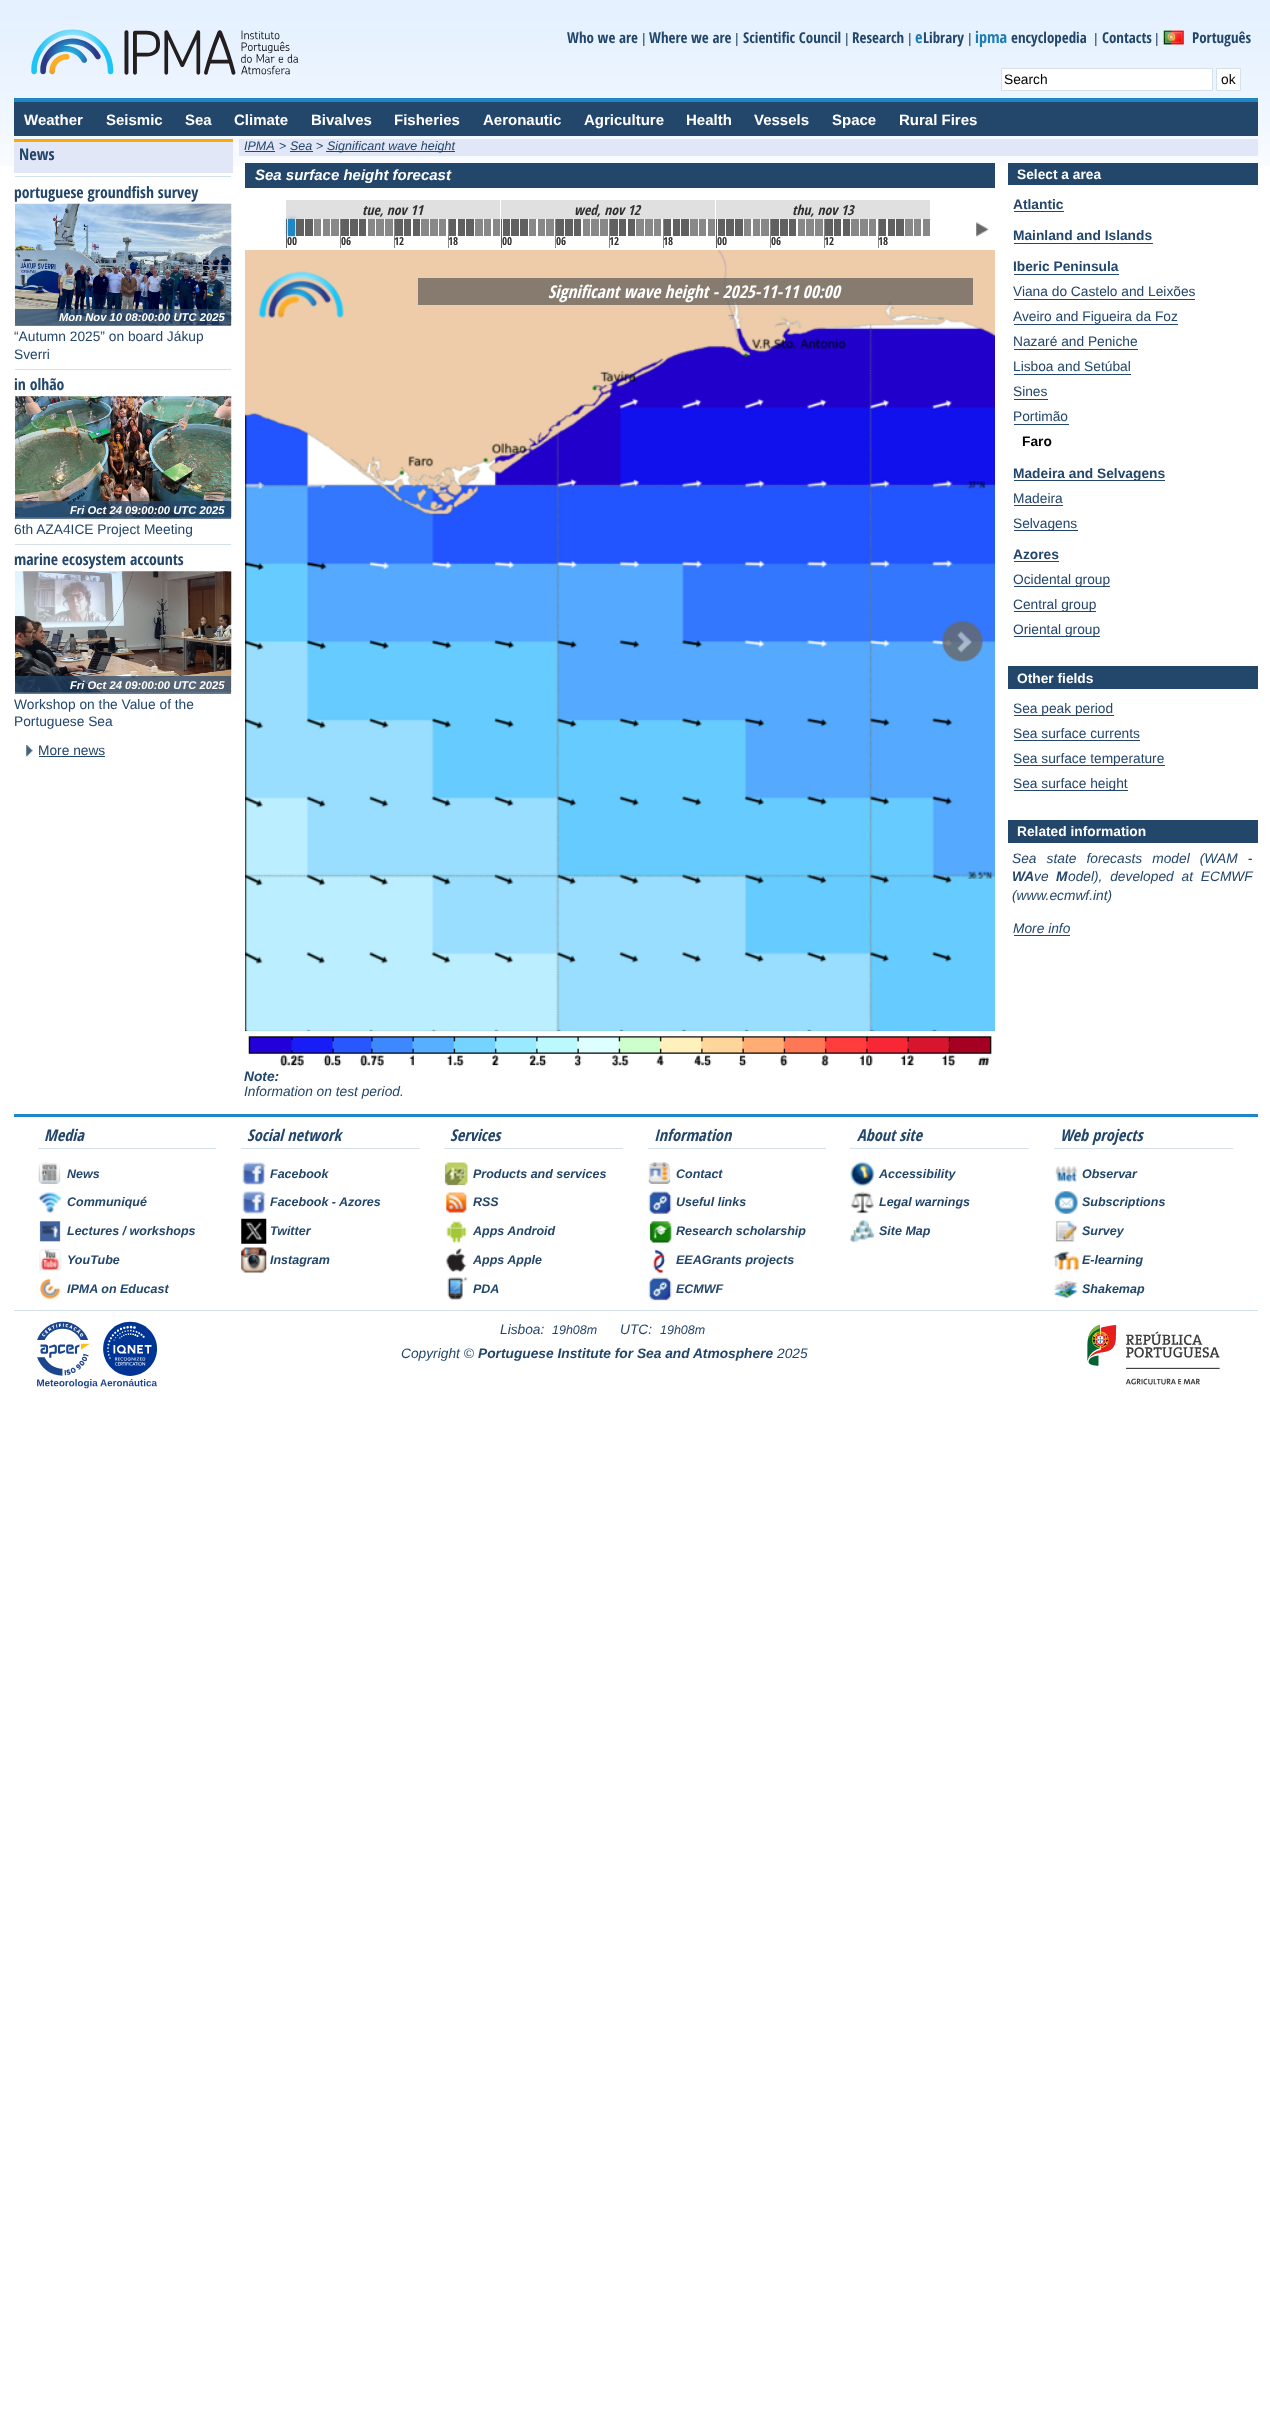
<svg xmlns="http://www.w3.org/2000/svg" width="1270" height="2433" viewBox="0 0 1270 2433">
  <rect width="100%" height="100%" fill="#fff"/>
  <image x="0" y="0" width="1270" height="166" href="img/1.png"/>
  <image x="31" y="29" width="268" height="46" href="img/2.png"/>
  <image x="1163" y="30" width="21" height="15" href="img/3.png"/>
  <path d="M1001.5 68.5h211v22H1001.5z" fill="#fff" stroke="#d4e1ea"/>
  <path d="M1216.5 68.5h24v22H1216.5z" fill="#fff" stroke="#d4e1ea"/>
  <path d="M14 102h1244v34H14z" fill="#23466b"/>
  <path d="M14 98h1244v4H14z" fill="#1f87c6"/>
  <path d="M239 139h1019v17H239z" fill="#e2e7f7"/>
  <path d="M245 151h30v1H245z" fill="#23466b"/>
  <path d="M290 151h23v1H290z" fill="#23466b"/>
  <path d="M326 151h129v1H326z" fill="#23466b"/>
  <path d="M14 142h219v31H14z" fill="#e2e7f7"/>
  <path d="M14 139h219v3H14z" fill="#f8ab07"/>
  <path d="M15 176h216v1H15z" fill="#d4e1ea"/>
  <image x="15" y="203" width="217" height="122" href="img/4.png"/>
  <path d="M15 309h216v17H15z" fill="#23466bb3"/>
  <path d="M15 369h216v1H15z" fill="#d4e1ea"/>
  <image x="15" y="396" width="217" height="122" href="img/5.png"/>
  <path d="M15 501h216v18H15z" fill="#23466bb3"/>
  <path d="M15 544h216v1H15z" fill="#d4e1ea"/>
  <image x="15" y="571" width="217" height="122" href="img/6.png"/>
  <path d="M15 676h216v18H15z" fill="#23466bb3"/>
  <image x="26" y="745" width="7" height="12" href="img/7.png"/>
  <path d="M39 756h66v1H39z" fill="#23466b"/>
  <path d="M245 163h750v25H245z" fill="#23466b"/>
  <path d="M286 200h214v19H286z" fill="#e0e0e0"/>
  <path d="M286 219h1v29H286z" fill="#606060"/>
  <path d="M288 219h7v17H288z" fill="#1f87c6bf" filter="blur(2px)"/>
  <path d="M296 219h8v17H296z" fill="#606060"/>
  <path d="M305 219h8v17H305z" fill="#606060"/>
  <path d="M314 219h7v17H314z" fill="#888"/>
  <path d="M323 219h7v17H323z" fill="#888"/>
  <path d="M331 219h8v17H331z" fill="#888"/>
  <path d="M350 219h8v17H350z" fill="#606060"/>
  <path d="M359 219h7v17H359z" fill="#606060"/>
  <path d="M368 219h7v17H368z" fill="#888"/>
  <path d="M376 219h8v17H376z" fill="#888"/>
  <path d="M385 219h8v17H385z" fill="#888"/>
  <path d="M404 219h7v17H404z" fill="#606060"/>
  <path d="M413 219h7v17H413z" fill="#606060"/>
  <path d="M421 219h8v17H421z" fill="#888"/>
  <path d="M430 219h8v17H430z" fill="#888"/>
  <path d="M439 219h7v17H439z" fill="#888"/>
  <path d="M458 219h7v17H458z" fill="#606060"/>
  <path d="M466 219h8v17H466z" fill="#606060"/>
  <path d="M475 219h8v17H475z" fill="#888"/>
  <path d="M484 219h7v17H484z" fill="#888"/>
  <path d="M493 219h7v17H493z" fill="#888"/>
  <path d="M288 219h7v17H288z" fill="#1f87c6"/>
  <path d="M340 219h1v29H340z" fill="#888"/>
  <path d="M341 219h8v17H341z" fill="#606060"/>
  <path d="M394 219h1v29H394z" fill="#888"/>
  <path d="M395 219h8v17H395z" fill="#606060"/>
  <path d="M448 219h1v29H448z" fill="#888"/>
  <path d="M449 219h7v17H449z" fill="#606060"/>
  <path d="M501 200h214v19H501z" fill="#e0e0e0"/>
  <path d="M511 219h8v17H511z" fill="#606060"/>
  <path d="M520 219h8v17H520z" fill="#606060"/>
  <path d="M529 219h7v17H529z" fill="#888"/>
  <path d="M538 219h7v17H538z" fill="#888"/>
  <path d="M546 219h8v17H546z" fill="#888"/>
  <path d="M565 219h8v17H565z" fill="#606060"/>
  <path d="M574 219h7v17H574z" fill="#606060"/>
  <path d="M583 219h7v17H583z" fill="#888"/>
  <path d="M591 219h8v17H591z" fill="#888"/>
  <path d="M600 219h8v17H600z" fill="#888"/>
  <path d="M619 219h7v17H619z" fill="#606060"/>
  <path d="M628 219h7v17H628z" fill="#606060"/>
  <path d="M636 219h8v17H636z" fill="#888"/>
  <path d="M645 219h8v17H645z" fill="#888"/>
  <path d="M654 219h7v17H654z" fill="#888"/>
  <path d="M673 219h7v17H673z" fill="#606060"/>
  <path d="M681 219h8v17H681z" fill="#606060"/>
  <path d="M690 219h8v17H690z" fill="#888"/>
  <path d="M699 219h7v17H699z" fill="#888"/>
  <path d="M708 219h7v17H708z" fill="#888"/>
  <path d="M501 219h1v29H501z" fill="#606060"/>
  <path d="M503 219h7v17H503z" fill="#606060"/>
  <path d="M555 219h1v29H555z" fill="#888"/>
  <path d="M556 219h8v17H556z" fill="#606060"/>
  <path d="M609 219h1v29H609z" fill="#888"/>
  <path d="M610 219h8v17H610z" fill="#606060"/>
  <path d="M663 219h1v29H663z" fill="#888"/>
  <path d="M664 219h7v17H664z" fill="#606060"/>
  <path d="M716 200h214v19H716z" fill="#e0e0e0"/>
  <path d="M726 219h8v17H726z" fill="#606060"/>
  <path d="M735 219h8v17H735z" fill="#606060"/>
  <path d="M744 219h7v17H744z" fill="#888"/>
  <path d="M753 219h7v17H753z" fill="#888"/>
  <path d="M761 219h8v17H761z" fill="#888"/>
  <path d="M780 219h8v17H780z" fill="#606060"/>
  <path d="M789 219h7v17H789z" fill="#606060"/>
  <path d="M798 219h7v17H798z" fill="#888"/>
  <path d="M806 219h8v17H806z" fill="#888"/>
  <path d="M815 219h8v17H815z" fill="#888"/>
  <path d="M834 219h7v17H834z" fill="#606060"/>
  <path d="M843 219h7v17H843z" fill="#606060"/>
  <path d="M851 219h8v17H851z" fill="#888"/>
  <path d="M860 219h8v17H860z" fill="#888"/>
  <path d="M869 219h7v17H869z" fill="#888"/>
  <path d="M888 219h7v17H888z" fill="#606060"/>
  <path d="M896 219h8v17H896z" fill="#606060"/>
  <path d="M905 219h8v17H905z" fill="#888"/>
  <path d="M914 219h7v17H914z" fill="#888"/>
  <path d="M923 219h7v17H923z" fill="#888"/>
  <path d="M716 219h1v29H716z" fill="#606060"/>
  <path d="M718 219h7v17H718z" fill="#606060"/>
  <path d="M770 219h1v29H770z" fill="#888"/>
  <path d="M771 219h8v17H771z" fill="#606060"/>
  <path d="M824 219h1v29H824z" fill="#888"/>
  <path d="M825 219h8v17H825z" fill="#606060"/>
  <path d="M878 219h1v29H878z" fill="#888"/>
  <path d="M879 219h7v17H879z" fill="#606060"/>
  <image x="245" y="250" width="750" height="782" href="img/8.png"/>
  <path d="M418 278h555v27H418z" fill="#505050a6"/>
  <image x="976" y="222" width="13" height="15" href="img/9.png"/>
  <image x="942" y="621" width="41" height="41" href="img/10.png"/>
  <image x="248" y="1036" width="744" height="31" href="img/11.png"/>
  <path d="M1008 163h250v22H1008z" fill="#23466b"/>
  <path d="M1014 211h50v1H1014z" fill="#23466b"/>
  <path d="M1014 243h139v1H1014z" fill="#23466b"/>
  <path d="M1014 274h105v1H1014z" fill="#23466b"/>
  <path d="M1014 299h181v1H1014z" fill="#23466b"/>
  <path d="M1014 324h164v1H1014z" fill="#23466b"/>
  <path d="M1014 349h124v1H1014z" fill="#23466b"/>
  <path d="M1014 374h117v1H1014z" fill="#23466b"/>
  <path d="M1014 399h34v1H1014z" fill="#23466b"/>
  <path d="M1014 424h55v1H1014z" fill="#23466b"/>
  <path d="M1014 480h151v1H1014z" fill="#23466b"/>
  <path d="M1014 505h49v1H1014z" fill="#23466b"/>
  <path d="M1014 530h64v1H1014z" fill="#23466b"/>
  <path d="M1014 561h45v1H1014z" fill="#23466b"/>
  <path d="M1014 586h96v1H1014z" fill="#23466b"/>
  <path d="M1014 611h82v1H1014z" fill="#23466b"/>
  <path d="M1014 636h86v1H1014z" fill="#23466b"/>
  <path d="M1008 666h250v23H1008z" fill="#23466b"/>
  <path d="M1014 715h100v1H1014z" fill="#23466b"/>
  <path d="M1014 740h126v1H1014z" fill="#23466b"/>
  <path d="M1014 765h151v1H1014z" fill="#23466b"/>
  <path d="M1014 790h114v1H1014z" fill="#23466b"/>
  <path d="M1008 820h250v23H1008z" fill="#23466b"/>
  <path d="M1014 935h56v1H1014z" fill="#23466b"/>
  <path d="M14 1114h1244v3H14z" fill="#1f87c6"/>
  <path d="M38 1148h178v1H38z" fill="#d4e1ea"/>
  <image x="38" y="1162" width="23" height="22" href="img/12.png"/>
  <image x="38" y="1192" width="24" height="22" href="img/13.png"/>
  <image x="39" y="1221" width="22" height="21" href="img/14.png"/>
  <image x="39" y="1249" width="23" height="22" href="img/15.png"/>
  <image x="39" y="1278" width="22" height="21" href="img/16.png"/>
  <path d="M241 1148h179v1H241z" fill="#d4e1ea"/>
  <image x="242" y="1162" width="24" height="23" href="img/17.png"/>
  <image x="242" y="1191" width="24" height="23" href="img/18.png"/>
  <image x="241" y="1218" width="26" height="26" href="img/19.png"/>
  <image x="241" y="1247" width="26" height="26" href="img/20.png"/>
  <path d="M444 1148h179v1H444z" fill="#d4e1ea"/>
  <image x="444" y="1162" width="24" height="24" href="img/21.png"/>
  <image x="446" y="1192" width="21" height="21" href="img/22.png"/>
  <image x="446" y="1220" width="21" height="23" href="img/23.png"/>
  <image x="446" y="1248" width="21" height="24" href="img/24.png"/>
  <image x="447" y="1277" width="21" height="24" href="img/25.png"/>
  <path d="M648 1148h178v1H648z" fill="#d4e1ea"/>
  <image x="648" y="1162" width="23" height="22" href="img/26.png"/>
  <image x="648" y="1191" width="24" height="23" href="img/27.png"/>
  <image x="649" y="1221" width="23" height="22" href="img/28.png"/>
  <image x="653" y="1249" width="13" height="25" href="img/29.png"/>
  <image x="648" y="1277" width="24" height="24" href="img/30.png"/>
  <path d="M850 1148h179v1H850z" fill="#d4e1ea"/>
  <image x="850" y="1161" width="25" height="26" href="img/31.png"/>
  <image x="851" y="1191" width="23" height="23" href="img/32.png"/>
  <image x="850" y="1219" width="25" height="24" href="img/33.png"/>
  <path d="M1054 1148h179v1H1054z" fill="#d4e1ea"/>
  <image x="1055" y="1166" width="23" height="17" href="img/34.png"/>
  <image x="1054" y="1191" width="24" height="23" href="img/35.png"/>
  <image x="1055" y="1220" width="23" height="23" href="img/36.png"/>
  <image x="1053" y="1251" width="26" height="20" href="img/37.png"/>
  <image x="1053" y="1280" width="25" height="18" href="img/38.png"/>
  <path d="M14 1310h1244v1H14z" fill="#d4e1ea"/>
  <image x="37" y="1321" width="121" height="68" href="img/39.png"/>
  <image x="1087" y="1324" width="133" height="61" href="img/40.png"/>
  <text x="567" y="43" font-family="Open Sans Condensed" font-size="15" font-weight="bold" fill="#23466b">Who we are</text>
  <text x="642" y="43" font-family="Liberation Sans" font-size="13.75" fill="#23466b">|</text>
  <text x="649" y="43" font-family="Open Sans Condensed" font-size="15" font-weight="bold" fill="#23466b">Where we are</text>
  <text x="735" y="43" font-family="Liberation Sans" font-size="13.75" fill="#23466b">|</text>
  <text x="743" y="43" font-family="Open Sans Condensed" font-size="15" font-weight="bold" fill="#23466b">Scientific Council</text>
  <text x="845" y="43" font-family="Liberation Sans" font-size="13.75" fill="#23466b">|</text>
  <text x="852" y="43" font-family="Open Sans Condensed" font-size="15" font-weight="bold" fill="#23466b">Research</text>
  <text x="908" y="43" font-family="Liberation Sans" font-size="13.75" fill="#23466b">|</text>
  <text x="915" y="43" font-family="Open Sans Condensed" font-size="16.25" font-weight="bold" fill="#1d7cb6">e</text>
  <text x="923" y="43" font-family="Open Sans Condensed" font-size="15" font-weight="bold" fill="#23466b">Library</text>
  <text x="968" y="43" font-family="Liberation Sans" font-size="13.75" fill="#23466b">|</text>
  <text x="975" y="43" font-family="Open Sans Condensed" font-size="16.25" font-weight="bold" fill="#1d7cb6">ipma</text>
  <text x="1011" y="43" font-family="Open Sans Condensed" font-size="15" font-weight="bold" fill="#23466b">encyclopedia</text>
  <text x="1094" y="43" font-family="Liberation Sans" font-size="13.75" fill="#23466b">|</text>
  <text x="1102" y="43" font-family="Open Sans Condensed" font-size="15" font-weight="bold" fill="#23466b">Contacts</text>
  <text x="1155" y="43" font-family="Liberation Sans" font-size="13.75" fill="#23466b">|</text>
  <text x="1192" y="43" font-family="Open Sans Condensed" font-size="15" font-weight="bold" fill="#23466b">Português</text>
  <g font-family="Liberation Sans" font-size="13.75" fill="#000">
    <text x="1004" y="84">Search</text>
    <text x="1221" y="84">ok</text>
  </g>
  <g font-family="Liberation Sans" font-size="15" font-weight="bold" fill="#fff">
    <text x="24" y="125">Weather</text>
    <text x="106" y="125">Seismic</text>
    <text x="185" y="125">Sea</text>
    <text x="234" y="125">Climate</text>
    <text x="311" y="125">Bivalves</text>
    <text x="394" y="125">Fisheries</text>
    <text x="483" y="125">Aeronautic</text>
    <text x="584" y="125">Agriculture</text>
    <text x="686" y="125">Health</text>
    <text x="754" y="125">Vessels</text>
    <text x="832" y="125">Space</text>
    <text x="899" y="125">Rural Fires</text>
  </g>
  <text x="244" y="150" font-family="Liberation Sans" font-size="12.5" font-style="italic" fill="#23466b">IPMA</text>
  <text x="279" y="150" font-family="Liberation Sans" font-size="12.5" fill="#23466b">&gt;</text>
  <text x="290" y="150" font-family="Liberation Sans" font-size="12.5" font-style="italic" fill="#23466b">Sea</text>
  <text x="316" y="150" font-family="Liberation Sans" font-size="12.5" fill="#23466b">&gt;</text>
  <text x="327" y="150" font-family="Liberation Sans" font-size="12.5" font-style="italic" fill="#23466b">Significant wave height</text>
  <text x="19" y="160" font-family="Open Sans Condensed" font-size="16.25" font-weight="bold" fill="#23466b">News</text>
  <text x="14" y="198" font-family="Open Sans Condensed" font-size="15.75" font-weight="bold" fill="#23466b">portuguese groundfish survey</text>
  <text x="59" y="321" font-family="Liberation Sans" font-size="11.25" font-weight="bold" font-style="italic" fill="#fff">Mon Nov 10 08:00:00 UTC 2025</text>
  <g font-family="Liberation Sans" font-size="13.75" fill="#23466b">
    <text x="14" y="341">“Autumn 2025” on board Jákup</text>
    <text x="14" y="359">Sverri</text>
  </g>
  <text x="14" y="390" font-family="Open Sans Condensed" font-size="15.75" font-weight="bold" fill="#23466b">in olhão</text>
  <text x="70" y="514" font-family="Liberation Sans" font-size="11.25" font-weight="bold" font-style="italic" fill="#fff">Fri Oct 24 09:00:00 UTC 2025</text>
  <text x="14" y="534" font-family="Liberation Sans" font-size="13.75" fill="#23466b">6th AZA4ICE Project Meeting</text>
  <text x="14" y="565" font-family="Open Sans Condensed" font-size="15.75" font-weight="bold" fill="#23466b">marine ecosystem accounts</text>
  <text x="70" y="689" font-family="Liberation Sans" font-size="11.25" font-weight="bold" font-style="italic" fill="#fff">Fri Oct 24 09:00:00 UTC 2025</text>
  <g font-family="Liberation Sans" font-size="13.75" fill="#23466b">
    <text x="14" y="709">Workshop on the Value of the</text>
    <text x="14" y="726">Portuguese Sea</text>
    <text x="38" y="755">More news</text>
  </g>
  <text x="255" y="180" font-family="Liberation Sans" font-size="15" font-weight="bold" font-style="italic" fill="#fff">Sea surface height forecast</text>
  <text x="362" y="215" font-family="Open Sans Condensed" font-size="13.75" font-weight="bold" font-style="italic" fill="#2e2e2e">tue, nov 11</text>
  <g font-family="Open Sans Condensed" font-size="11" font-weight="bold" fill="#2e2e2e">
    <text x="287" y="245">00</text>
    <text x="341" y="245">06</text>
    <text x="394" y="245">12</text>
    <text x="448" y="245">18</text>
  </g>
  <text x="574" y="215" font-family="Open Sans Condensed" font-size="13.75" font-weight="bold" font-style="italic" fill="#2e2e2e">wed, nov 12</text>
  <g font-family="Open Sans Condensed" font-size="11" font-weight="bold" fill="#2e2e2e">
    <text x="502" y="245">00</text>
    <text x="556" y="245">06</text>
    <text x="609" y="245">12</text>
    <text x="663" y="245">18</text>
  </g>
  <text x="792" y="215" font-family="Open Sans Condensed" font-size="13.75" font-weight="bold" font-style="italic" fill="#2e2e2e">thu, nov 13</text>
  <g font-family="Open Sans Condensed" font-size="11" font-weight="bold" fill="#2e2e2e">
    <text x="717" y="245">00</text>
    <text x="771" y="245">06</text>
    <text x="824" y="245">12</text>
    <text x="878" y="245">18</text>
  </g>
  <text x="548" y="298" font-family="Open Sans Condensed" font-size="17.5" font-weight="bold" font-style="italic" fill="#fff">Significant wave height - 2025-11-11 00:00</text>
  <text x="244" y="1081" font-family="Liberation Sans" font-size="13.75" font-weight="bold" font-style="italic" fill="#23466b">Note:</text>
  <text x="244" y="1096" font-family="Liberation Sans" font-size="13.75" font-style="italic" fill="#23466b">Information on test period.</text>
  <text x="1017" y="179" font-family="Liberation Sans" font-size="13.75" font-weight="bold" fill="#fff">Select a area</text>
  <g font-family="Liberation Sans" font-size="13.75" font-weight="bold" fill="#23466b">
    <text x="1013" y="209">Atlantic</text>
    <text x="1013" y="240">Mainland and Islands</text>
    <text x="1013" y="271">Iberic Peninsula</text>
  </g>
  <g font-family="Liberation Sans" font-size="13.75" fill="#23466b">
    <text x="1013" y="296">Viana do Castelo and Leixões</text>
    <text x="1013" y="321">Aveiro and Figueira da Foz</text>
    <text x="1013" y="346">Nazaré and Peniche</text>
    <text x="1013" y="371">Lisboa and Setúbal</text>
    <text x="1013" y="396">Sines</text>
    <text x="1013" y="421">Portimão</text>
  </g>
  <text x="1022" y="446" font-family="Liberation Sans" font-size="13.75" font-weight="bold" fill="#000">Faro</text>
  <text x="1013" y="478" font-family="Liberation Sans" font-size="13.75" font-weight="bold" fill="#23466b">Madeira and Selvagens</text>
  <g font-family="Liberation Sans" font-size="13.75" fill="#23466b">
    <text x="1013" y="503">Madeira</text>
    <text x="1013" y="528">Selvagens</text>
  </g>
  <text x="1013" y="559" font-family="Liberation Sans" font-size="13.75" font-weight="bold" fill="#23466b">Azores</text>
  <g font-family="Liberation Sans" font-size="13.75" fill="#23466b">
    <text x="1013" y="584">Ocidental group</text>
    <text x="1013" y="609">Central group</text>
    <text x="1013" y="634">Oriental group</text>
  </g>
  <text x="1017" y="683" font-family="Liberation Sans" font-size="13.75" font-weight="bold" fill="#fff">Other fields</text>
  <g font-family="Liberation Sans" font-size="13.75" fill="#23466b">
    <text x="1013" y="713">Sea peak period</text>
    <text x="1013" y="738">Sea surface currents</text>
    <text x="1013" y="763">Sea surface temperature</text>
    <text x="1013" y="788">Sea surface height</text>
  </g>
  <text x="1017" y="836" font-family="Liberation Sans" font-size="13.75" font-weight="bold" fill="#fff">Related information</text>
  <text x="1012" y="863" word-spacing="6.25" font-family="Liberation Sans" font-size="13.75" font-style="italic" fill="#23466b">Sea state forecasts model (WAM -</text>
  <text x="1012" y="881" font-family="Liberation Sans" font-size="13.75" font-weight="bold" font-style="italic" fill="#23466b">WA</text>
  <text x="1034" y="881" font-family="Liberation Sans" font-size="13.75" font-style="italic" fill="#23466b">ve</text>
  <text x="1056" y="881" font-family="Liberation Sans" font-size="13.75" font-weight="bold" font-style="italic" fill="#23466b">M</text>
  <g font-family="Liberation Sans" font-size="13.75" font-style="italic" fill="#23466b">
    <text x="1068" y="881" word-spacing="4">odel), developed at ECMWF</text>
    <text x="1012" y="900">(www.ecmwf.int)</text>
    <text x="1013" y="933">More info</text>
  </g>
  <text x="44" y="1141" font-family="Open Sans Condensed" font-size="16.25" font-weight="bold" font-style="italic" fill="#23466b">Media</text>
  <g font-family="Liberation Sans" font-size="12.5" font-weight="bold" font-style="italic" fill="#23466b">
    <text x="67" y="1178">News</text>
    <text x="67" y="1206">Communiqué</text>
    <text x="67" y="1235">Lectures / workshops</text>
    <text x="67" y="1264">YouTube</text>
    <text x="67" y="1293">IPMA on Educast</text>
  </g>
  <text x="247" y="1141" font-family="Open Sans Condensed" font-size="16.25" font-weight="bold" font-style="italic" fill="#23466b">Social network</text>
  <g font-family="Liberation Sans" font-size="12.5" font-weight="bold" font-style="italic" fill="#23466b">
    <text x="270" y="1178">Facebook</text>
    <text x="270" y="1206">Facebook - Azores</text>
    <text x="270" y="1235">Twitter</text>
    <text x="270" y="1264">Instagram</text>
  </g>
  <text x="450" y="1141" font-family="Open Sans Condensed" font-size="16.25" font-weight="bold" font-style="italic" fill="#23466b">Services</text>
  <g font-family="Liberation Sans" font-size="12.5" font-weight="bold" font-style="italic" fill="#23466b">
    <text x="473" y="1178">Products and services</text>
    <text x="473" y="1206">RSS</text>
    <text x="473" y="1235">Apps Android</text>
    <text x="473" y="1264">Apps Apple</text>
    <text x="473" y="1293">PDA</text>
  </g>
  <text x="654" y="1141" font-family="Open Sans Condensed" font-size="16.25" font-weight="bold" font-style="italic" fill="#23466b">Information</text>
  <g font-family="Liberation Sans" font-size="12.5" font-weight="bold" font-style="italic" fill="#23466b">
    <text x="676" y="1178">Contact</text>
    <text x="676" y="1206">Useful links</text>
    <text x="676" y="1235">Research scholarship</text>
    <text x="676" y="1264">EEAGrants projects</text>
    <text x="676" y="1293">ECMWF</text>
  </g>
  <text x="857" y="1141" font-family="Open Sans Condensed" font-size="16.25" font-weight="bold" font-style="italic" fill="#23466b">About site</text>
  <g font-family="Liberation Sans" font-size="12.5" font-weight="bold" font-style="italic" fill="#23466b">
    <text x="879" y="1178">Accessibility</text>
    <text x="879" y="1206">Legal warnings</text>
    <text x="879" y="1235">Site Map</text>
  </g>
  <text x="1060" y="1141" font-family="Open Sans Condensed" font-size="16.25" font-weight="bold" font-style="italic" fill="#23466b">Web projects</text>
  <g font-family="Liberation Sans" font-size="12.5" font-weight="bold" font-style="italic" fill="#23466b">
    <text x="1082" y="1178">Observar</text>
    <text x="1082" y="1206">Subscriptions</text>
    <text x="1082" y="1235">Survey</text>
    <text x="1082" y="1264">E-learning</text>
    <text x="1082" y="1293">Shakemap</text>
  </g>
  <text x="500" y="1334" font-family="Liberation Sans" font-size="13.75" font-style="italic" fill="#23466b">Lisboa:</text>
  <text x="552" y="1334" font-family="Liberation Sans" font-size="12.5" font-style="italic" fill="#23466b">19h08m</text>
  <text x="620" y="1334" font-family="Liberation Sans" font-size="13.75" font-style="italic" fill="#23466b">UTC:</text>
  <text x="660" y="1334" font-family="Liberation Sans" font-size="12.5" font-style="italic" fill="#23466b">19h08m</text>
  <text x="401" y="1358" font-family="Liberation Sans" font-size="13.75" font-style="italic" fill="#23466b">Copyright ©</text>
  <text x="478" y="1358" font-family="Liberation Sans" font-size="13.75" font-weight="bold" font-style="italic" fill="#23466b">Portuguese Institute for Sea and Atmosphere</text>
  <text x="777" y="1358" font-family="Liberation Sans" font-size="13.75" font-style="italic" fill="#23466b">2025</text>
</svg>
